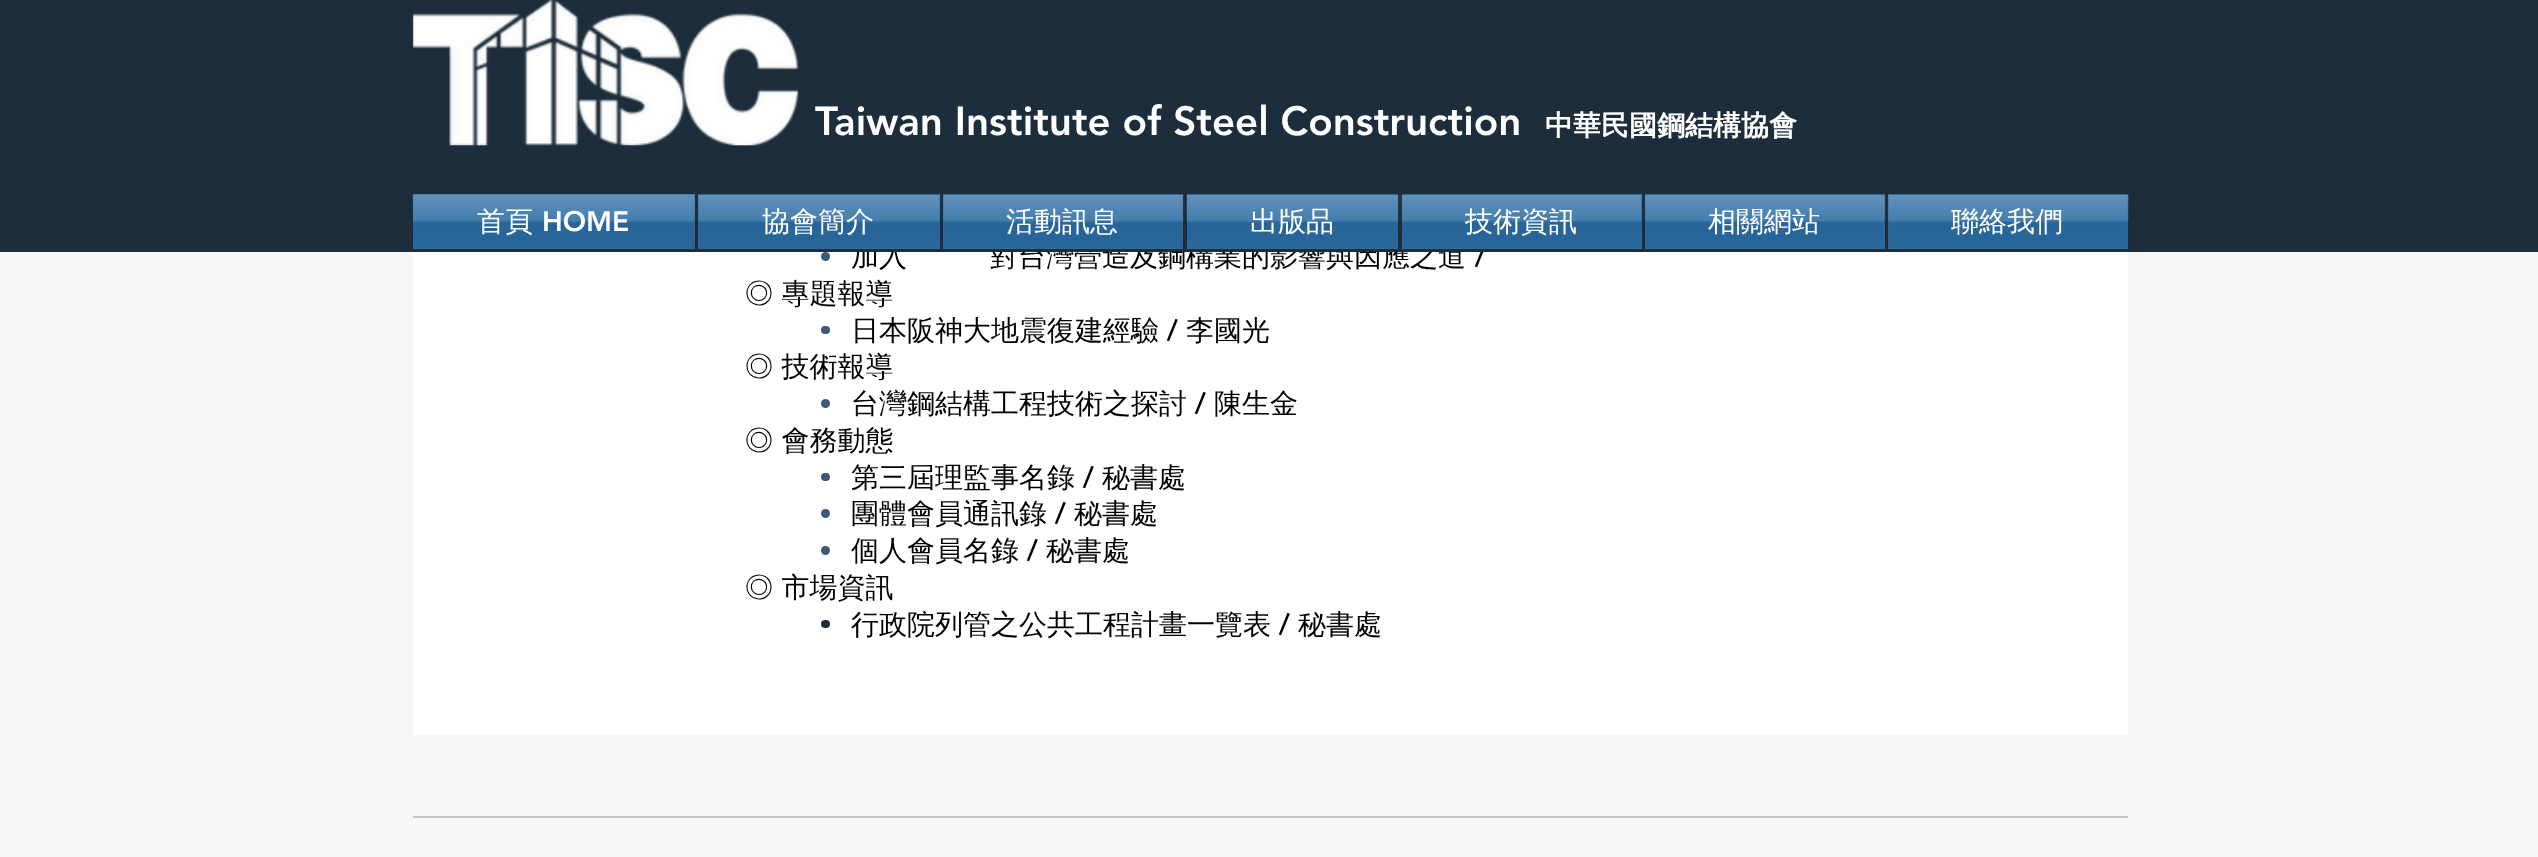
<svg xmlns="http://www.w3.org/2000/svg" width="2538" height="857" viewBox="0 0 2538 857">
  <rect width="100%" height="100%" fill="#f7f7f7"/>
  <path d="M413 252h1715v483H413z" fill="#fff"/>
  <circle cx="825.5" cy="256.5" r="4.5" fill="#3d5975"/>
  <rect x="821" y="326" width="9" height="8" rx="4" fill="#3d5975"/>
  <circle cx="825.5" cy="403.5" r="4.5" fill="#3d5975"/>
  <rect x="821" y="473" width="9" height="8" rx="4" fill="#3d5975"/>
  <circle cx="825.5" cy="513.5" r="4.5" fill="#3d5975"/>
  <circle cx="825.5" cy="550.5" r="4.5" fill="#3d5975"/>
  <rect x="821" y="620" width="9" height="8" rx="4" fill="#1e2d3b"/>
  <path d="M413 816h1715v2H413z" fill="#c6c6c6"/>
  <g font-family="WenQuanYi Zen Hei" font-size="28" font-weight="500" fill="#000">
    <text x="851" y="266">加入</text>
    <text x="990" y="266">對台灣營造及鋼構業的影響與因應之道</text>
  </g>
  <text x="1475" y="266" font-family="'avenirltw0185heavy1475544'" font-size="28" font-weight="900" fill="#000">/</text>
  <path d="M0 0h2538v252H0z" fill="#1e2d3b"/>
  <path d="M1888 194h240v55H1888z" fill="#2b6ca3"/>
  <image x="1887" y="195" width="242" height="53" href="img/8.png"/>
  <text x="1951" y="231" font-family="WenQuanYi Zen Hei" font-size="28" font-weight="500" fill="#fff">聯絡我們</text>
  <path d="M1645 194h240v55H1645z" fill="#2b6ca3"/>
  <image x="1644" y="195" width="242" height="53" href="img/7.png"/>
  <text x="1708" y="231" font-family="WenQuanYi Zen Hei" font-size="28" font-weight="500" fill="#fff">相關網站</text>
  <path d="M1402 194h240v55H1402z" fill="#2b6ca3"/>
  <image x="1401" y="195" width="241" height="53" href="img/6.png"/>
  <text x="1465" y="231" font-family="WenQuanYi Zen Hei" font-size="28" font-weight="500" fill="#fff">技術資訊</text>
  <path d="M1187 194h211v55H1187z" fill="#2b6ca3"/>
  <image x="1186" y="195" width="213" height="53" href="img/5.png"/>
  <text x="1250" y="231" font-family="WenQuanYi Zen Hei" font-size="28" font-weight="500" fill="#fff">出版品</text>
  <path d="M943 194h240v55H943z" fill="#2b6ca3"/>
  <image x="942" y="195" width="242" height="53" href="img/4.png"/>
  <text x="1006" y="231" font-family="WenQuanYi Zen Hei" font-size="28" font-weight="500" fill="#fff">活動訊息</text>
  <path d="M698 194h242v55H698z" fill="#2b6ca3"/>
  <image x="697" y="195" width="244" height="53" href="img/3.png"/>
  <text x="762" y="231" font-family="WenQuanYi Zen Hei" font-size="28" font-weight="500" fill="#fff">協會簡介</text>
  <path d="M413 194h282v55H413z" fill="#2b6ca3"/>
  <image x="412" y="194" width="284" height="54" href="img/2.png"/>
  <text x="542" y="231" font-family="'avenirltw0185heavy1475544'" font-size="28" font-weight="900" fill="#fff">HOME</text>
  <text x="477" y="231" font-family="WenQuanYi Zen Hei" font-size="28" font-weight="500" fill="#fff">首頁</text>
  <text x="1545" y="135" font-family="WenQuanYi Zen Hei" font-size="28" font-weight="bold" fill="#fff">中華民國鋼結構協會</text>
  <text x="815" y="135" font-family="'avenirltw0185heavy1475544'" font-size="40.25" font-weight="900" fill="#fff">Taiwan Institute of Steel Construction</text>
  <image x="412" y="0" width="387" height="146" href="img/1.png"/>
  <g font-family="WenQuanYi Zen Hei" font-size="28" font-weight="500" fill="#000">
    <text x="745" y="303">◎ 專題報導</text>
    <text x="851" y="340">日本阪神大地震復建經驗</text>
  </g>
  <text x="1167" y="340" font-family="'avenirltw0185heavy1475544'" font-size="28" font-weight="900" fill="#000">/</text>
  <g font-family="WenQuanYi Zen Hei" font-size="28" font-weight="500" fill="#000">
    <text x="1186" y="340">李國光</text>
    <text x="745" y="376">◎ 技術報導</text>
    <text x="851" y="413">台灣鋼結構工程技術之探討</text>
  </g>
  <text x="1195" y="413" font-family="'avenirltw0185heavy1475544'" font-size="28" font-weight="900" fill="#000">/</text>
  <g font-family="WenQuanYi Zen Hei" font-size="28" font-weight="500" fill="#000">
    <text x="1214" y="413">陳生金</text>
    <text x="745" y="450">◎ 會務動態</text>
    <text x="851" y="487">第三屆理監事名錄</text>
  </g>
  <text x="1083" y="487" font-family="'avenirltw0185heavy1475544'" font-size="28" font-weight="900" fill="#000">/</text>
  <g font-family="WenQuanYi Zen Hei" font-size="28" font-weight="500" fill="#000">
    <text x="1102" y="487">秘書處</text>
    <text x="851" y="523">團體會員通訊錄</text>
  </g>
  <text x="1055" y="523" font-family="'avenirltw0185heavy1475544'" font-size="28" font-weight="900" fill="#000">/</text>
  <g font-family="WenQuanYi Zen Hei" font-size="28" font-weight="500" fill="#000">
    <text x="1074" y="523">秘書處</text>
    <text x="851" y="560">個人會員名錄</text>
  </g>
  <text x="1027" y="560" font-family="'avenirltw0185heavy1475544'" font-size="28" font-weight="900" fill="#000">/</text>
  <g font-family="WenQuanYi Zen Hei" font-size="28" font-weight="500" fill="#000">
    <text x="1046" y="560">秘書處</text>
    <text x="745" y="597">◎ 市場資訊</text>
    <text x="851" y="634">行政院列管之公共工程計畫一覽表</text>
  </g>
  <text x="1279" y="634" font-family="'avenirltw0185heavy1475544'" font-size="28" font-weight="900" fill="#000">/</text>
  <text x="1298" y="634" font-family="WenQuanYi Zen Hei" font-size="28" font-weight="500" fill="#000">秘書處</text>
</svg>
